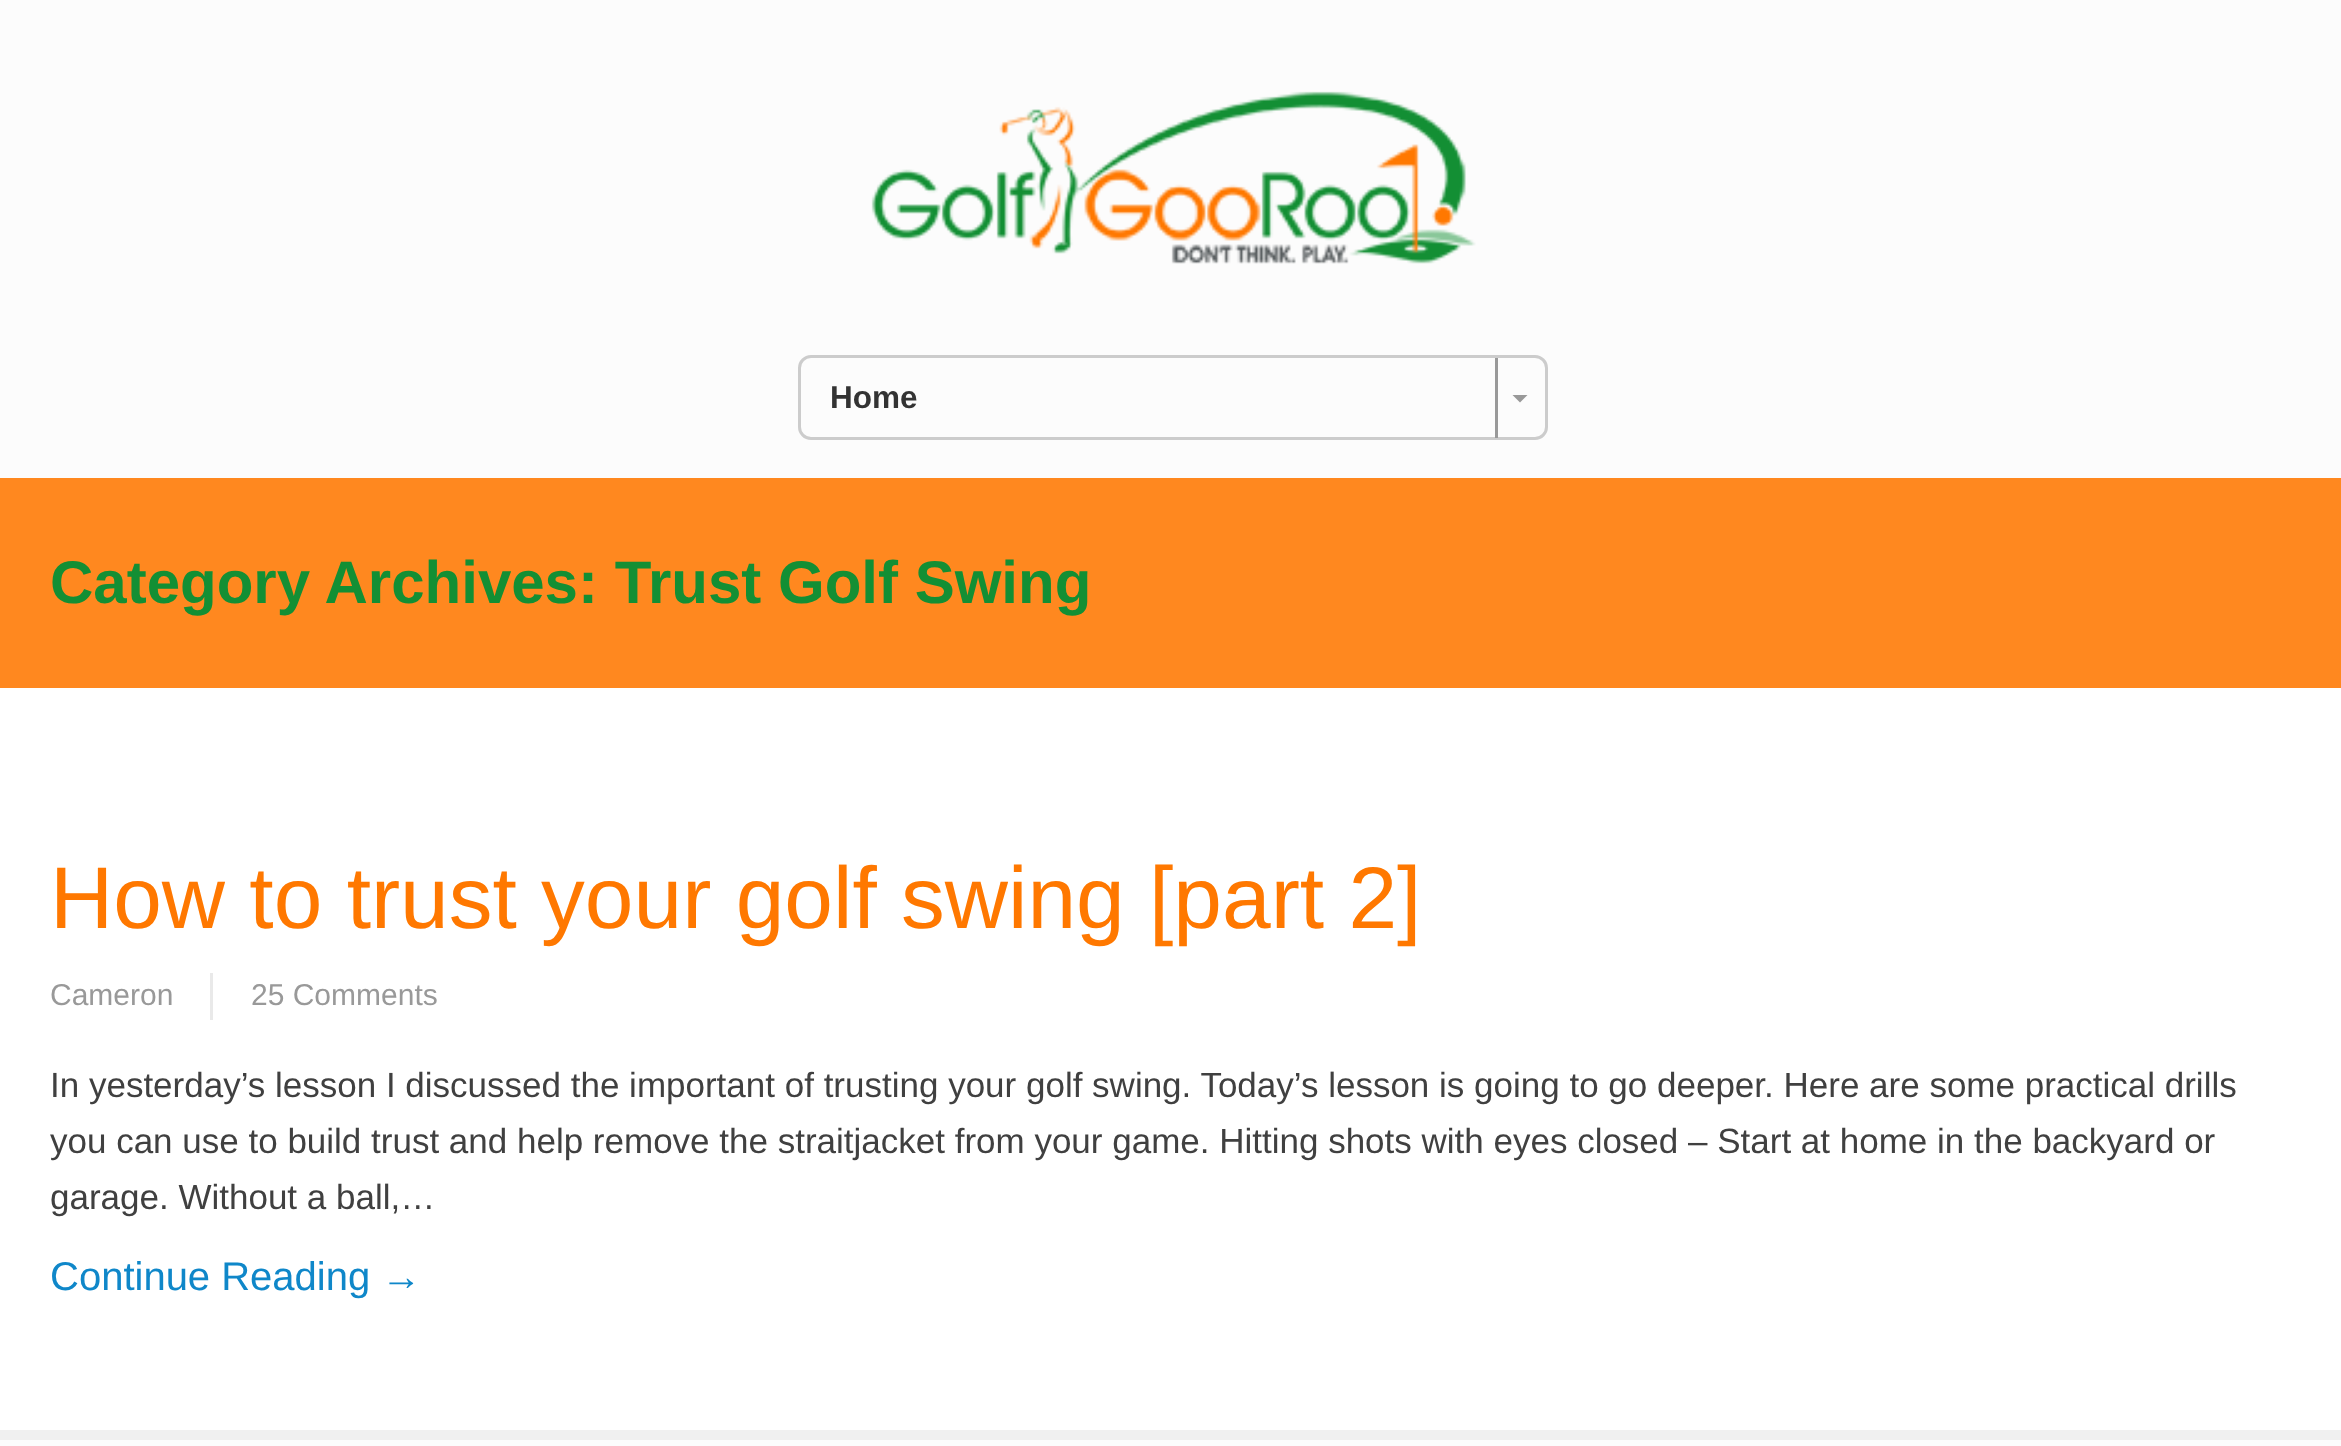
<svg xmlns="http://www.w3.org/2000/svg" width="2341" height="1446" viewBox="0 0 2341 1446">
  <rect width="100%" height="100%" fill="#fff"/>
  <path d="M0 0h2341v478H0z" fill="#fcfcfc"/>
  <image x="871" y="91" width="605" height="173" href="img/1.png"/>
  <rect x="799.5" y="356.5" width="747" height="82" rx="11.5" fill="none" stroke="#ccc" stroke-width="3"/>
  <path d="M1495 358h3v80H1495z" fill="#999"/>
  <path d="M1512.5 395H1527.5L1520 402.5Z" fill="#999"/>
  <path d="M0 478h2341v210H0z" fill="#ff881f"/>
  <path d="M210 973h3v47H210z" fill="#e9e9e9"/>
  <path d="M0 1440h2341v6H0z" fill="#fcfcfc"/>
  <path d="M0 1430h2341v10H0z" fill="#f0f0f0"/>
  <text x="830" y="408" font-family="Liberation Sans" font-size="31.5" font-weight="bold" fill="#333">Home</text>
  <text x="50" y="603" font-family="Liberation Sans" font-size="60" font-weight="bold" fill="#138f34">Category Archives: Trust Golf Swing</text>
  <text x="50" y="928" font-family="Liberation Sans" font-size="87.5" fill="#ff7800">How to trust your golf swing [part 2]</text>
  <g font-family="Liberation Sans" font-size="30" fill="#999">
    <text x="50" y="1005">Cameron</text>
    <text x="251" y="1005">25 Comments</text>
  </g>
  <g font-family="Liberation Sans" font-size="35" fill="#404040">
    <text x="50" y="1097">In yesterday’s lesson I discussed the important of trusting your golf swing. Today’s lesson is going to go deeper. Here are some practical drills</text>
    <text x="50" y="1153">you can use to build trust and help remove the straitjacket from your game. Hitting shots with eyes closed – Start at home in the backyard or</text>
    <text x="50" y="1209">garage. Without a ball,…</text>
  </g>
  <text x="50" y="1290" font-family="Liberation Sans" font-size="40" fill="#0f87c9">Continue Reading →</text>
</svg>
